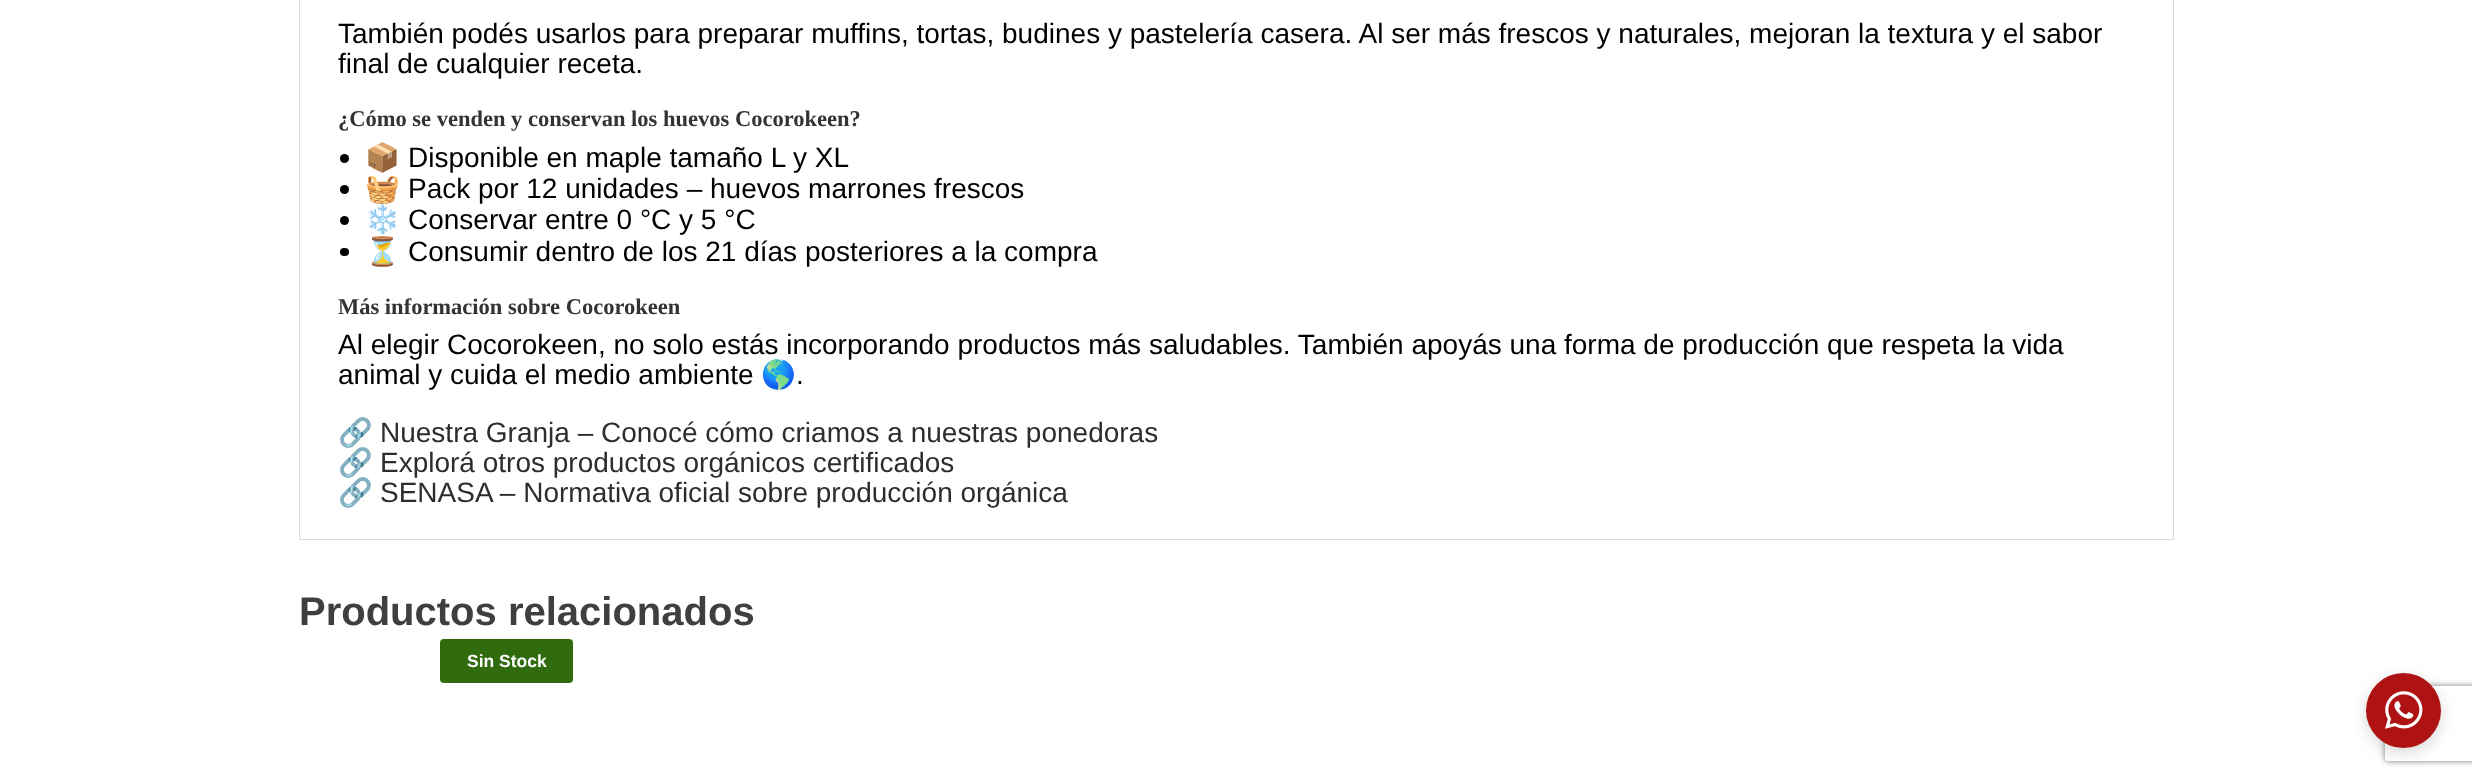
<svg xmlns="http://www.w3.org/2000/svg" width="2472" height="778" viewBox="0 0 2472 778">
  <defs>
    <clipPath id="clip1"><path d="M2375 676H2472V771H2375ZM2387.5 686H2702.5C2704 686 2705 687 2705 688.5V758.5C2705 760 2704 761 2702.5 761H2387.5C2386 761 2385 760 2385 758.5V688.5C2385 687 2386 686 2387.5 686Z" clip-rule="evenodd"/></clipPath>
  </defs>
  <rect width="100%" height="100%" fill="#fff"/>
  <path d="M299.5 -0.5h1874v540H299.5z" fill="none" stroke="#d9d9d9"/>
  <circle cx="344.5" cy="158.5" r="4.5" fill="#000"/>
  <circle cx="344.5" cy="189.5" r="4.5" fill="#000"/>
  <circle cx="344.5" cy="220.5" r="4.5" fill="#000"/>
  <rect x="340" y="248" width="9" height="8" rx="4" fill="#000"/>
  <rect x="440" y="639" width="133" height="44" rx="4" fill="#306b0e"/>
  <rect x="2366" y="678" width="75" height="75" rx="37.5" fill="#00000026" filter="blur(7.5px)"/>
  <g clip-path="url(#clip1)">
    <rect x="2385" y="686" width="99" height="75" rx="2.5" fill="#808080" filter="blur(3px)"/>
  </g>
  <circle cx="2403.5" cy="710.5" r="37.5" fill="#af1212"/>
  <image x="2385" y="691" width="38" height="38" href="img/1.png"/>
  <g font-family="Liberation Sans" font-size="28" fill="#000">
    <text x="338" y="43">También podés usarlos para preparar muffins, tortas, budines y pastelería casera. Al ser más frescos y naturales, mejoran la textura y el sabor</text>
    <text x="338" y="73">final de cualquier receta.</text>
  </g>
  <text x="338" y="126" font-family="Liberation Serif" font-size="22.5" font-weight="bold" fill="#333">¿Cómo se venden y conservan los huevos Cocorokeen?</text>
  <text x="365" y="167" font-family="Noto Color Emoji" font-size="28" fill="#000">📦</text>
  <text x="408" y="167" font-family="Liberation Sans" font-size="28" fill="#000">Disponible en maple tamaño L y XL</text>
  <text x="365" y="198" font-family="Noto Color Emoji" font-size="28" fill="#000">🧺</text>
  <text x="408" y="198" font-family="Liberation Sans" font-size="28" fill="#000">Pack por 12 unidades – huevos marrones frescos</text>
  <text x="365" y="229" font-family="Noto Color Emoji" font-size="28" fill="#000">❄️</text>
  <text x="408" y="229" font-family="Liberation Sans" font-size="28" fill="#000">Conservar entre 0 °C y 5 °C</text>
  <text x="365" y="261" font-family="Noto Color Emoji" font-size="28" fill="#000">⏳</text>
  <text x="408" y="261" font-family="Liberation Sans" font-size="28" fill="#000">Consumir dentro de los 21 días posteriores a la compra</text>
  <text x="338" y="314" font-family="Liberation Serif" font-size="22.5" font-weight="bold" fill="#333">Más información sobre Cocorokeen</text>
  <g font-family="Liberation Sans" font-size="28" fill="#000">
    <text x="338" y="354">Al elegir Cocorokeen, no solo estás incorporando productos más saludables. También apoyás una forma de producción que respeta la vida</text>
    <text x="338" y="384">animal y cuida el medio ambiente</text>
  </g>
  <text x="761" y="384" font-family="Noto Color Emoji" font-size="28" fill="#000">🌎</text>
  <text x="796" y="384" font-family="Liberation Sans" font-size="28" fill="#000">.</text>
  <text x="338" y="442" font-family="Noto Color Emoji" font-size="28" fill="#000">🔗</text>
  <text x="380" y="442" font-family="Liberation Sans" font-size="28" fill="#2d2d2d">Nuestra Granja – Conocé cómo criamos a nuestras ponedoras</text>
  <text x="338" y="472" font-family="Noto Color Emoji" font-size="28" fill="#000">🔗</text>
  <text x="380" y="472" font-family="Liberation Sans" font-size="28" fill="#2d2d2d">Explorá otros productos orgánicos certificados</text>
  <text x="338" y="502" font-family="Noto Color Emoji" font-size="28" fill="#000">🔗</text>
  <text x="380" y="502" font-family="Liberation Sans" font-size="28" fill="#2d2d2d">SENASA – Normativa oficial sobre producción orgánica</text>
  <text x="299" y="625" font-family="Liberation Sans" font-size="40" font-weight="bold" fill="#3f3f3f">Productos relacionados</text>
  <text x="467" y="667" font-family="Liberation Sans" font-size="17.5" font-weight="bold" fill="#fff">Sin Stock</text>
</svg>
